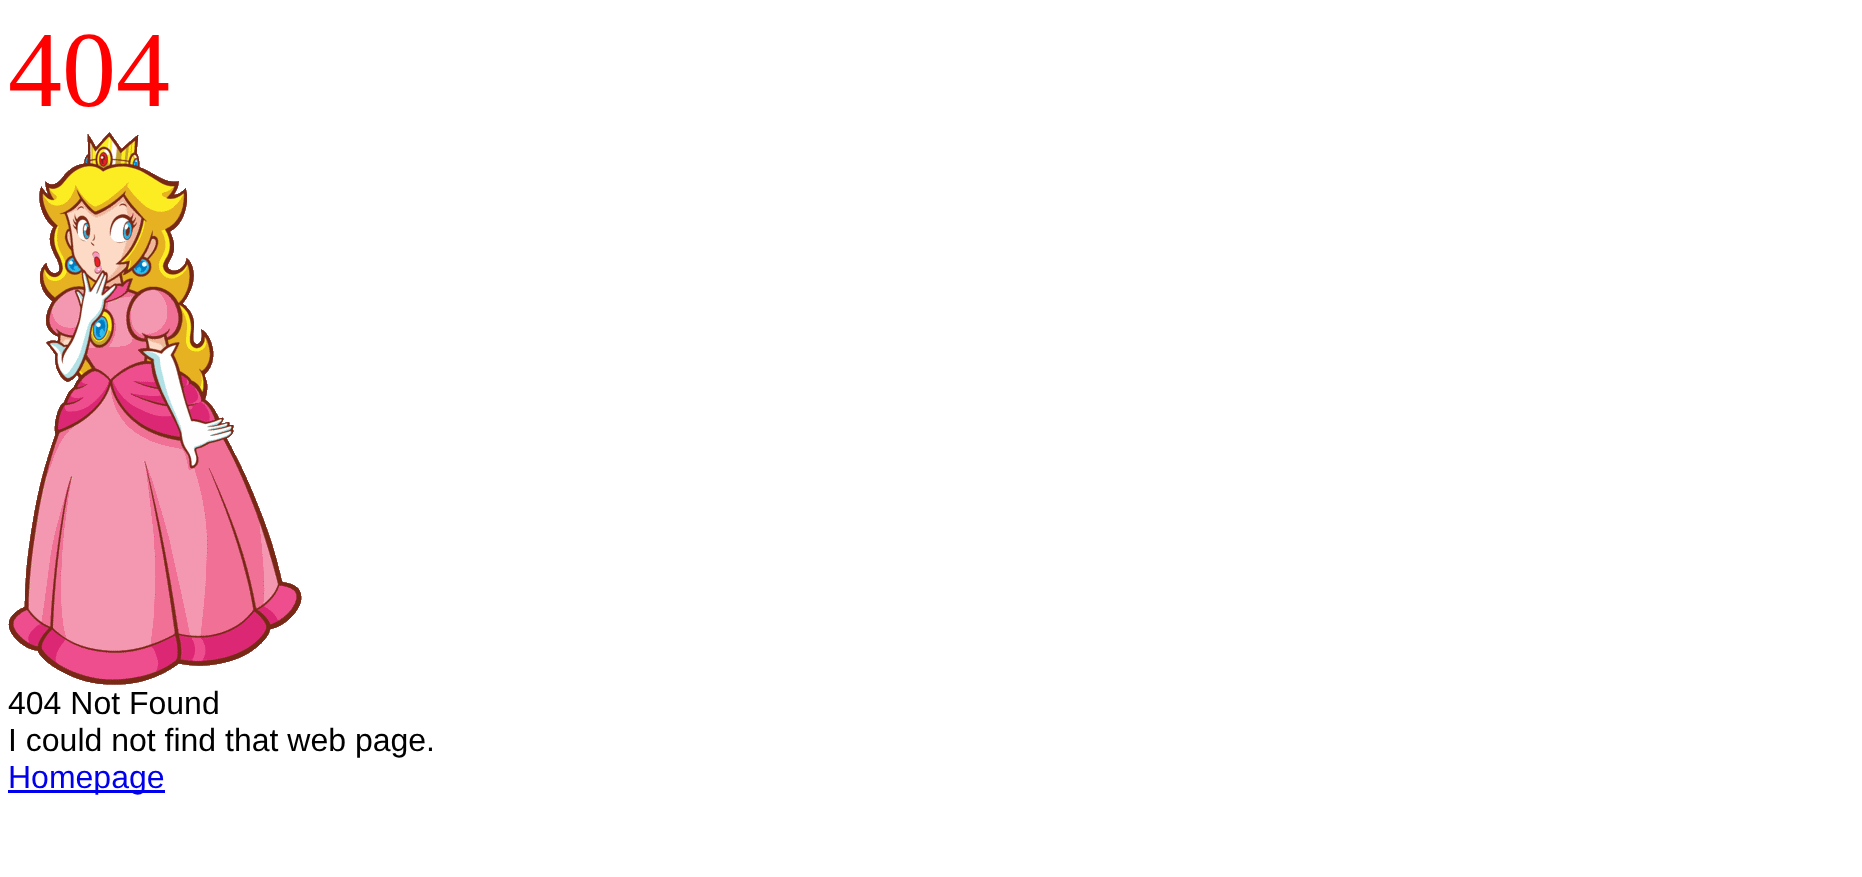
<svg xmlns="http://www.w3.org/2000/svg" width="1862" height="877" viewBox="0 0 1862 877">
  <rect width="100%" height="100%" fill="#fff"/>
  <image x="8" y="132" width="294" height="553" href="img/1.png"/>
  <path d="M8 790h157v3H8z" fill="#00e"/>
  <text x="8" y="106" font-family="Liberation Serif" font-size="108" fill="#f00">404</text>
  <g font-family="Liberation Sans" font-size="32" fill="#000">
    <text x="8" y="714">404 Not Found</text>
    <text x="8" y="751">I could not find that web page.</text>
  </g>
  <text x="8" y="788" font-family="Liberation Sans" font-size="32" fill="#00e">Homepage</text>
</svg>
